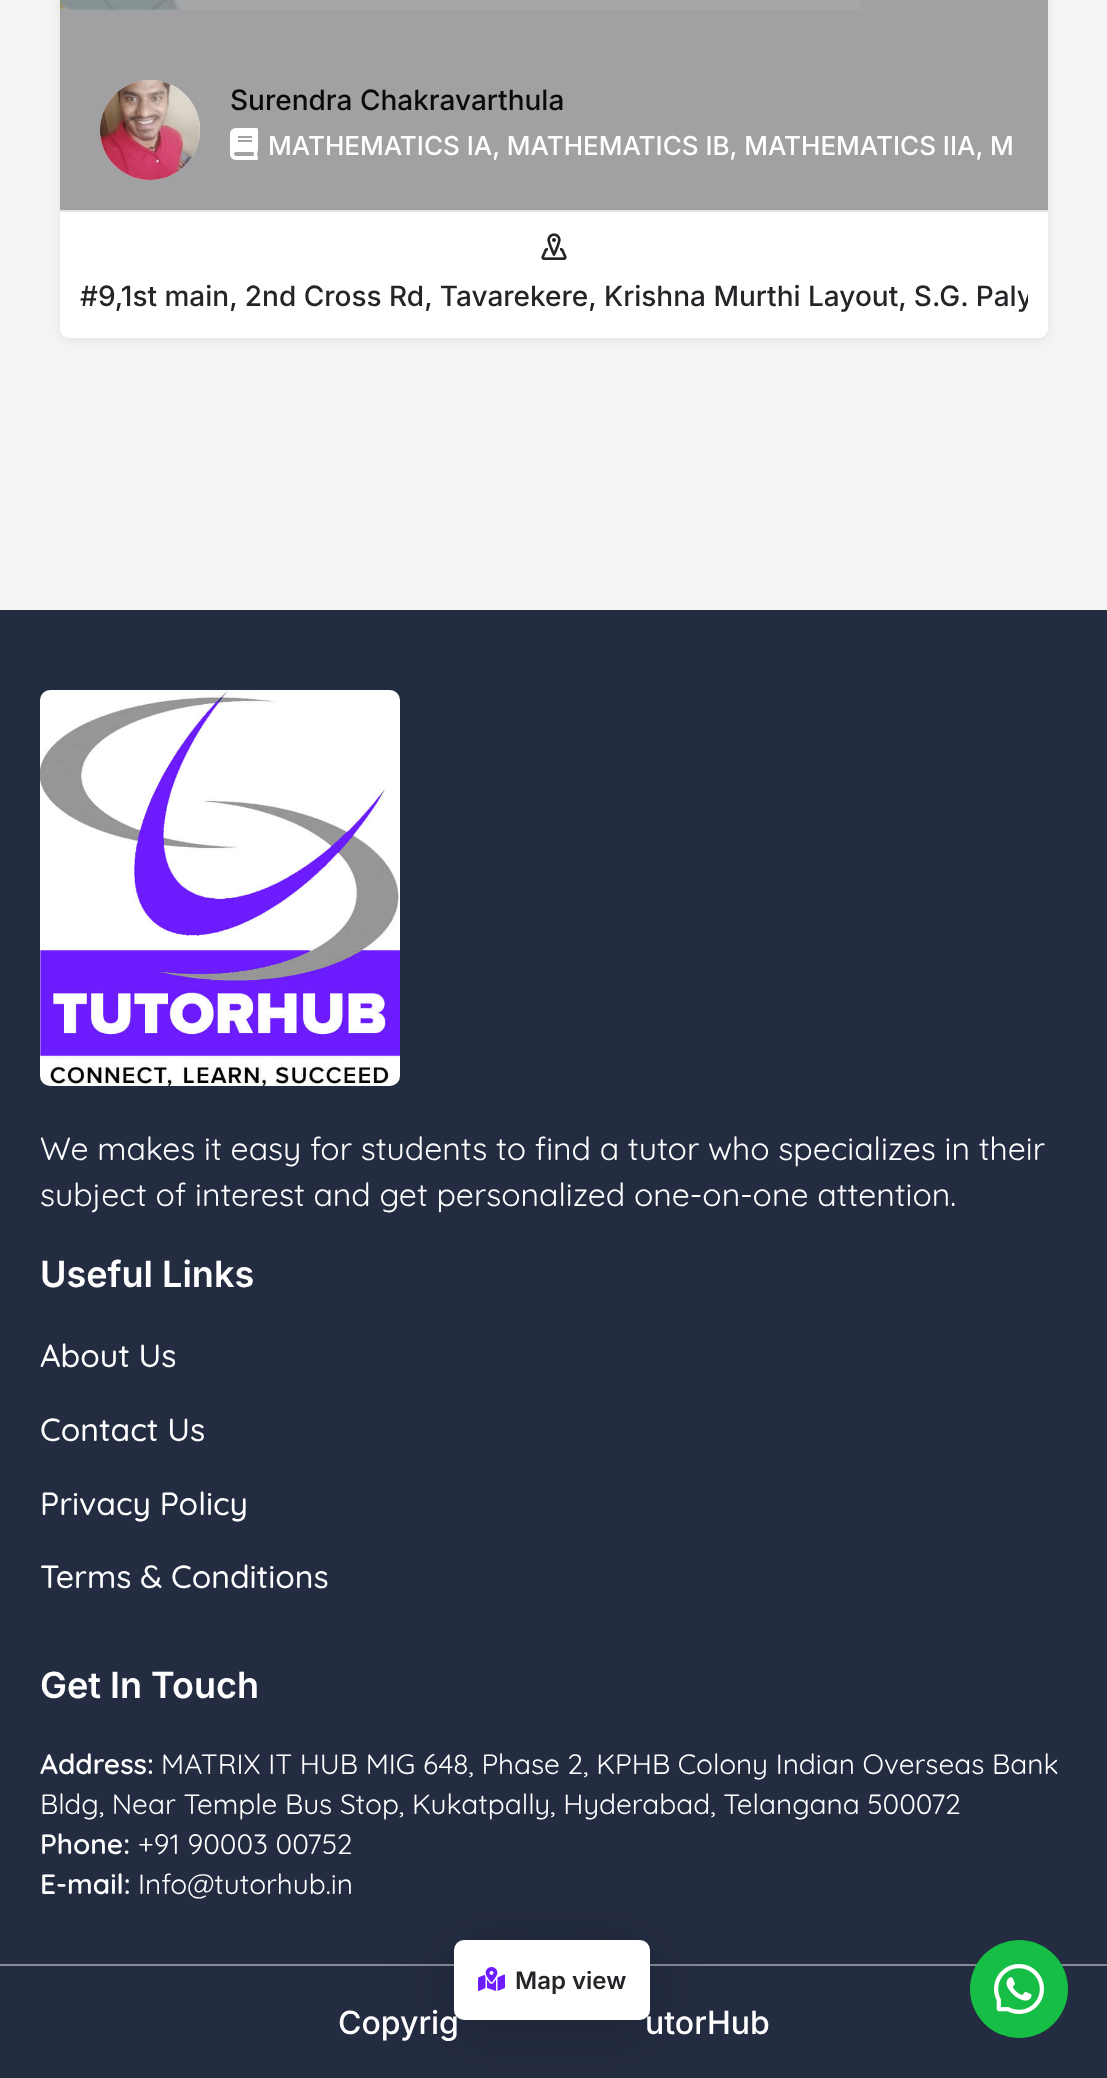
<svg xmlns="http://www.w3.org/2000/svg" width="1107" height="2078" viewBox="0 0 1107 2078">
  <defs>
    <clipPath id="clip1"><path d="M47 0H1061V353H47ZM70-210H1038C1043.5-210 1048-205.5 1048-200V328C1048 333.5 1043.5 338 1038 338H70C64.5 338 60 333.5 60 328V-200C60-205.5 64.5-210 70-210Z" clip-rule="evenodd"/></clipPath>
    <clipPath id="clip2"><path d="M80 274h948v44H80z"/></clipPath>
  </defs>
  <rect width="100%" height="100%" fill="#242c42"/>
  <path d="M0 0h1107v610H0z" fill="#f4f4f4"/>
  <path d="M60 0h988v210H60z" fill="#a1a1a3"/>
  <g clip-path="url(#clip1)">
    <rect x="60" y="-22" width="988" height="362" rx="10" fill="#00000012" filter="blur(4px)"/>
  </g>
  <image x="60" y="0" width="800" height="10" href="img/1.png"/>
  <circle cx="150" cy="130" r="50" fill="#fff"/>
  <image x="100" y="80" width="100" height="100" href="img/2.png"/>
  <image x="230" y="128" width="28" height="32" href="img/3.png"/>
  <path d="M60 210H1048V328C1048 333.5 1043.5 338 1038 338H70C64.5 338 60 333.5 60 328Z" fill="#fff"/>
  <path d="M60 210h988v2H60z" fill="#e3e3e3"/>
  <image x="541" y="233" width="26" height="27" href="img/4.png"/>
  <path d="M0 1964h1107v2H0z" fill="#868a95"/>
  <rect x="454" y="1950" width="196" height="80" rx="10" fill="#00000033" filter="blur(33px)"/>
  <rect x="454" y="1940" width="196" height="80" rx="10" fill="#fff"/>
  <image x="478" y="1967" width="27" height="24" href="img/5.png"/>
  <image x="40" y="690" width="360" height="396" href="img/6.png"/>
  <circle cx="1019" cy="1989" r="49" fill="#16be45"/>
  <image x="994" y="1964" width="50" height="50" href="img/7.png"/>
  <text x="230" y="110" font-family="Inter" font-size="28" font-weight="500" fill="#0a0a0a">Surendra Chakravarthula</text>
  <text x="268" y="155" font-family="Inter" font-size="26" font-weight="500" fill="#fff">MATHEMATICS IA, MATHEMATICS IB, MATHEMATICS IIA, M</text>
  <g clip-path="url(#clip2)">
    <text x="80" y="306" font-family="Inter" font-size="28" font-weight="500" fill="#242429">#9,1st main, 2nd Cross Rd, Tavarekere, Krishna Murthi Layout, S.G. Paly</text>
  </g>
  <text x="515" y="1989" font-family="Inter" font-size="24" font-weight="600" fill="#242429">Map view</text>
  <g font-family="Quicksand" font-size="32" fill="#fff">
    <text x="40" y="1160">We makes it easy for students to find a tutor who specializes in their</text>
    <text x="40" y="1206">subject of interest and get personalized one-on-one attention.</text>
  </g>
  <text x="40" y="1287" font-family="Inter" font-size="36" font-weight="600" fill="#fff">Useful Links</text>
  <g font-family="Quicksand" font-size="32" font-weight="500" fill="#fff">
    <text x="40" y="1367">About Us</text>
    <text x="40" y="1441">Contact Us</text>
    <text x="40" y="1515">Privacy Policy</text>
    <text x="40" y="1588">Terms &amp; Conditions</text>
  </g>
  <text x="40" y="1698" font-family="Inter" font-size="36" font-weight="600" fill="#fff">Get In Touch</text>
  <text x="40" y="1774" font-family="Quicksand" font-size="28" font-weight="600" fill="#fff">Address:</text>
  <g font-family="Quicksand" font-size="28" fill="#fff">
    <text x="161" y="1774">MATRIX IT HUB MIG 648, Phase 2, KPHB Colony Indian Overseas Bank</text>
    <text x="40" y="1814">Bldg, Near Temple Bus Stop, Kukatpally, Hyderabad, Telangana 500072</text>
  </g>
  <text x="40" y="1854" font-family="Quicksand" font-size="28" font-weight="600" fill="#fff">Phone:</text>
  <text x="138" y="1854" font-family="Quicksand" font-size="28" fill="#fff">+91 90003 00752</text>
  <text x="40" y="1894" font-family="Quicksand" font-size="28" font-weight="600" fill="#fff">E-mail:</text>
  <text x="138" y="1894" font-family="Quicksand" font-size="28" fill="#fff">Info@tutorhub.in</text>
  <g font-family="Inter" font-size="32" font-weight="500" fill="#fff">
    <text x="338" y="2034">Copyrig</text>
    <text x="645" y="2034">utorHub</text>
  </g>
</svg>
